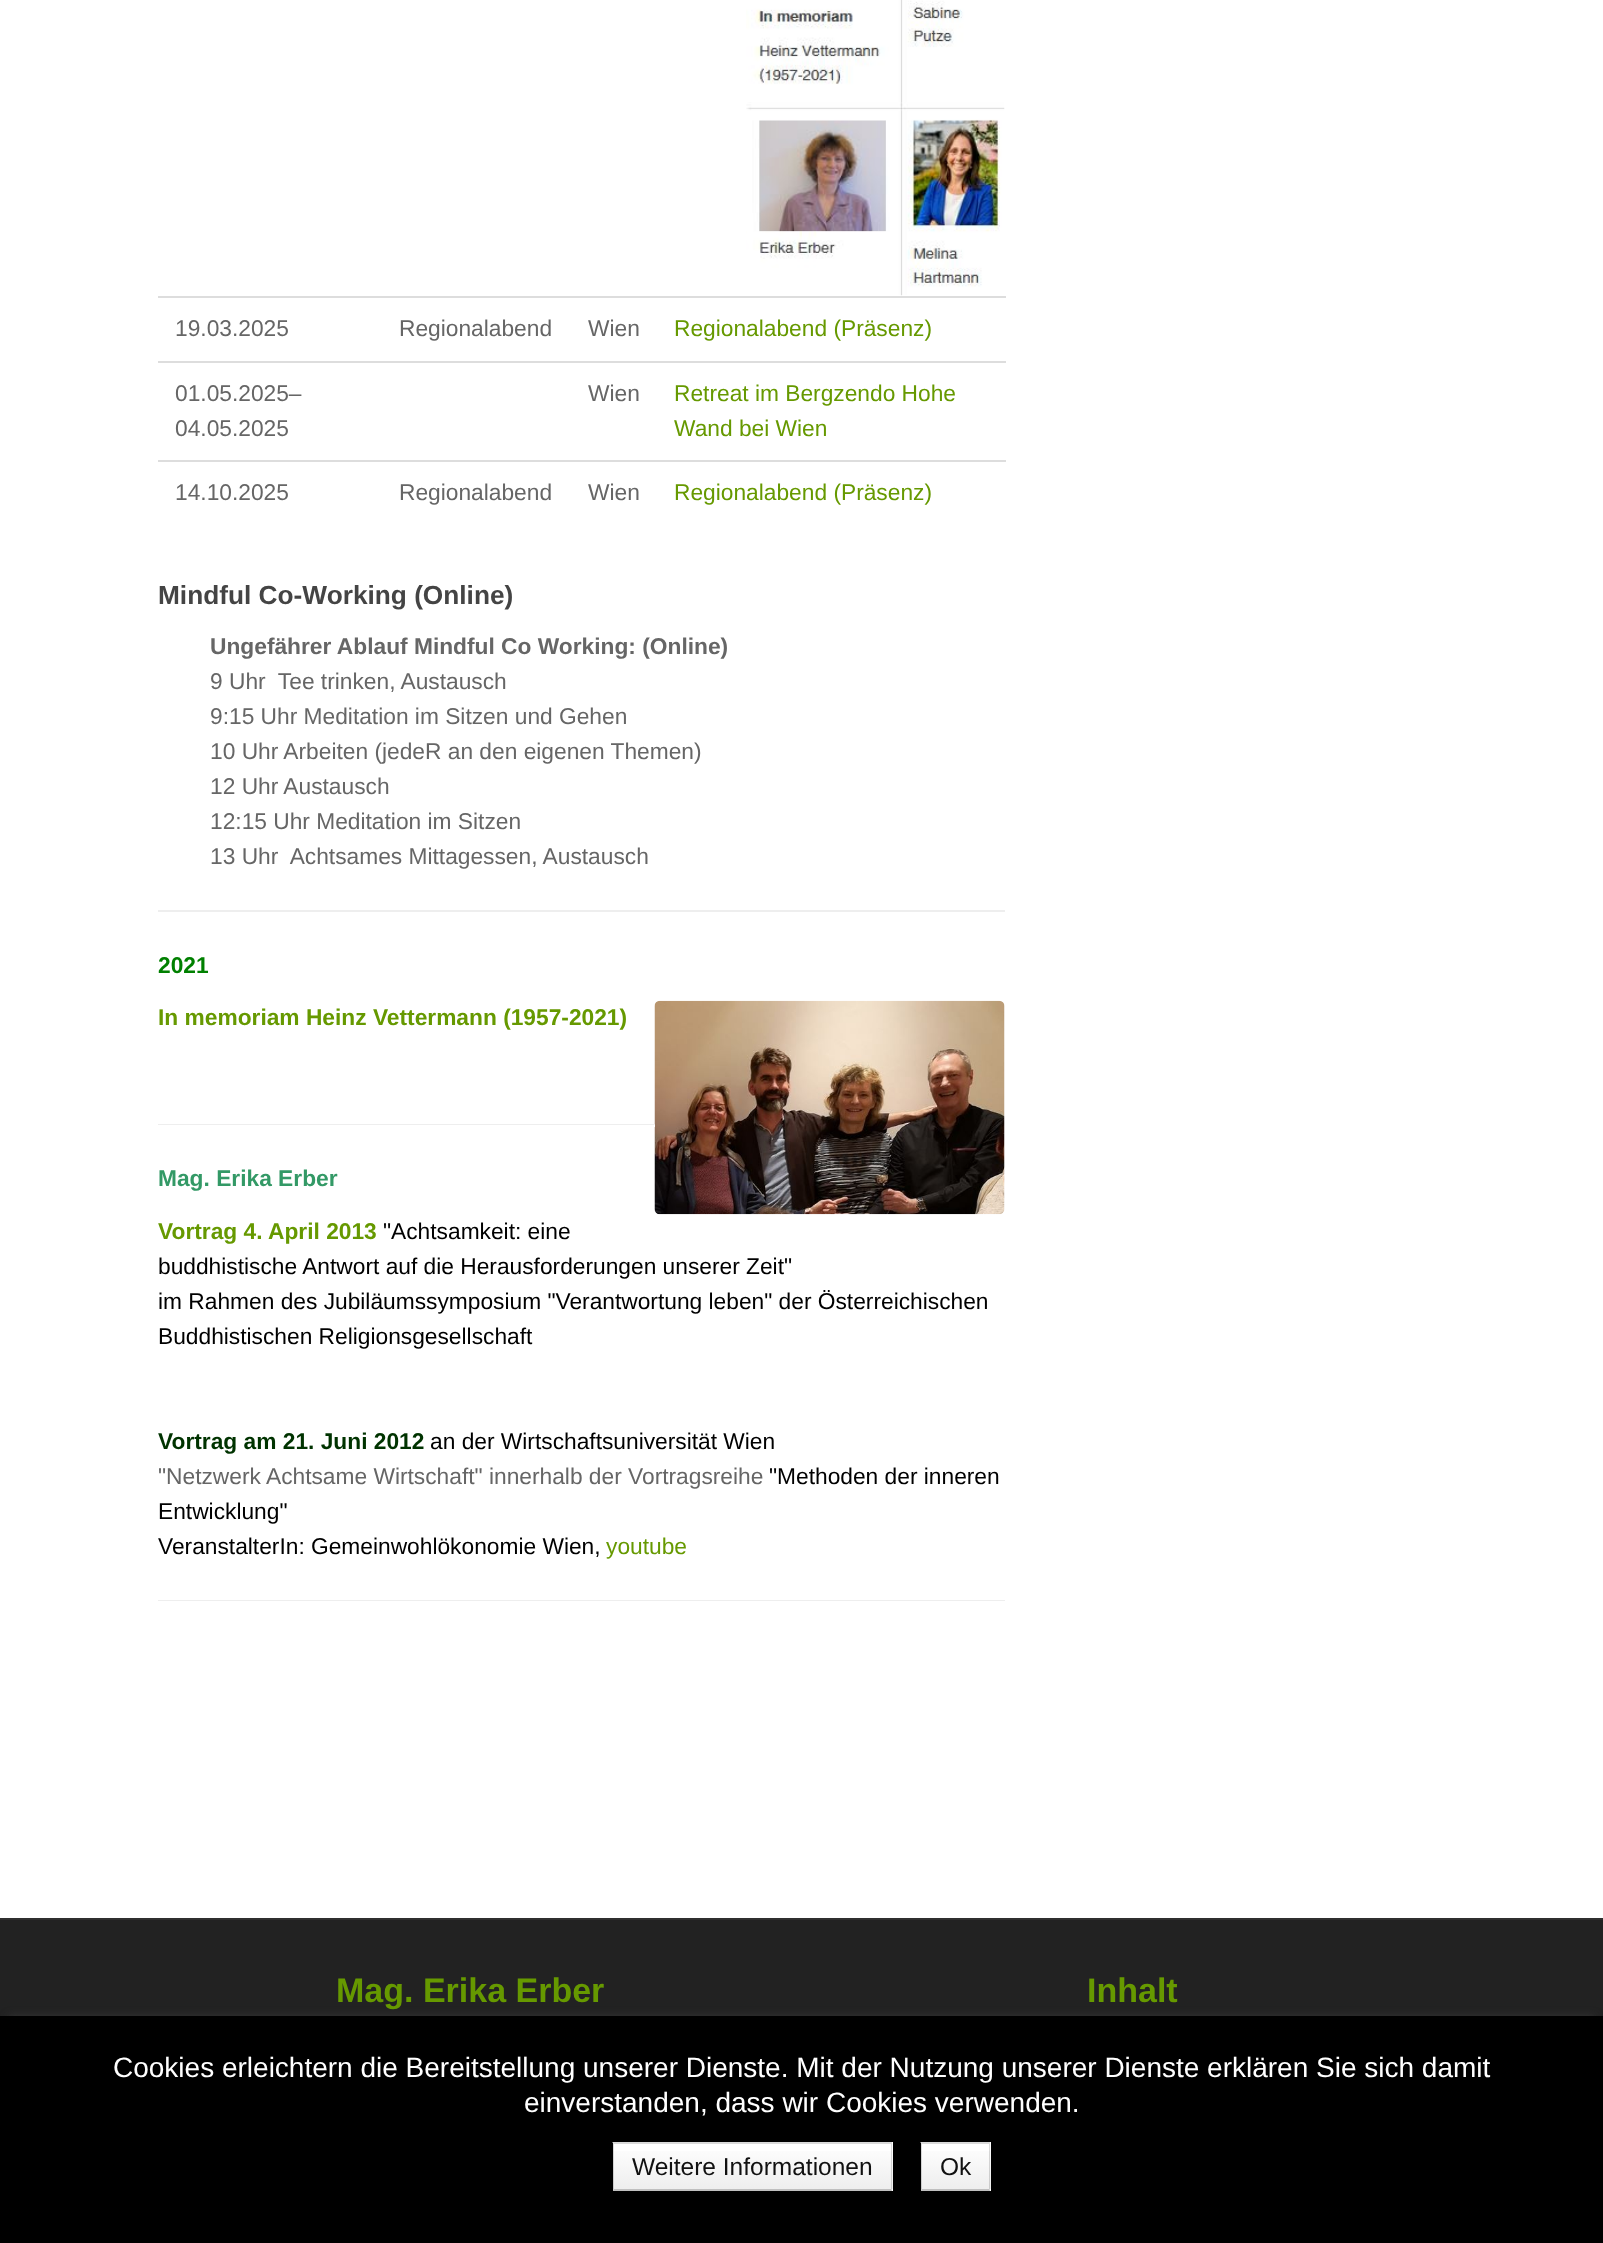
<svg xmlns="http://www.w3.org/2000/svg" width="1603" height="2243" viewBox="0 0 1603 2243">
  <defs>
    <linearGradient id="g1" gradientUnits="userSpaceOnUse" x1="753" y1="2144" x2="753" y2="2189"><stop offset="0" stop-color="#fff"/><stop offset="1" stop-color="#eee"/></linearGradient>
    <linearGradient id="g2" gradientUnits="userSpaceOnUse" x1="956" y1="2144" x2="956" y2="2189"><stop offset="0" stop-color="#fff"/><stop offset="1" stop-color="#eee"/></linearGradient>
  </defs>
  <rect width="100%" height="100%" fill="#fff"/>
  <image x="746" y="0" width="259" height="296" href="img/1.png"/>
  <path d="M158 296h848v2H158z" fill="#ddd"/>
  <path d="M158 361h848v2H158z" fill="#ddd"/>
  <path d="M158 460h848v2H158z" fill="#ddd"/>
  <path d="M158 910h847v2H158z" fill="#eee"/>
  <image x="654" y="1000" width="351" height="215" href="img/2.png"/>
  <path d="M158 1124h497v1H158z" fill="#eee"/>
  <path d="M654 1125h1v2H654z" fill="#fff"/>
  <path d="M158 1600h847v1H158z" fill="#eee"/>
  <path d="M0 1918h1603v2H0z" fill="#2f2f2f"/>
  <path d="M0 1920h1603v96H0z" fill="#222"/>
  <path d="M9 2016h1585v210H9z" fill="#333" filter="blur(4.5px)"/>
  <path d="M0 2016h1603v227H0z" fill="#000"/>
  <path d="M613 2142h280v49H613z" fill="#fff"/>
  <path d="M613 2151h280v38H613z" fill="url(#g1)"/>
  <path d="M612 2142H892L891 2144H614Z" fill="#d9d9d9"/>
  <path d="M892 2142V2191L891 2189V2144Z" fill="#00000026"/>
  <path d="M892 2191H612L614 2189H891Z" fill="#00000040"/>
  <path d="M612 2191V2142L614 2144V2189Z" fill="#00000026"/>
  <path d="M921 2142h70v49H921z" fill="#fff"/>
  <path d="M921 2151h70v38H921z" fill="url(#g2)"/>
  <path d="M920 2142H990L989 2144H922Z" fill="#d9d9d9"/>
  <path d="M990 2142V2191L989 2189V2144Z" fill="#00000026"/>
  <path d="M990 2191H920L922 2189H989Z" fill="#00000040"/>
  <path d="M920 2191V2142L922 2144V2189Z" fill="#00000026"/>
  <g font-family="Liberation Sans" font-size="22.75" fill="#666">
    <text x="175" y="336">19.03.2025</text>
    <text x="399" y="336">Regionalabend</text>
    <text x="588" y="336">Wien</text>
  </g>
  <text x="674" y="336" font-family="Liberation Sans" font-size="22.75" fill="#690">Regionalabend (Präsenz)</text>
  <g font-family="Liberation Sans" font-size="22.75" fill="#666">
    <text x="175" y="401">01.05.2025–</text>
    <text x="175" y="436">04.05.2025</text>
    <text x="588" y="401">Wien</text>
  </g>
  <g font-family="Liberation Sans" font-size="22.75" fill="#690">
    <text x="674" y="401">Retreat im Bergzendo Hohe</text>
    <text x="674" y="436">Wand bei Wien</text>
  </g>
  <g font-family="Liberation Sans" font-size="22.75" fill="#666">
    <text x="175" y="500">14.10.2025</text>
    <text x="399" y="500">Regionalabend</text>
    <text x="588" y="500">Wien</text>
  </g>
  <text x="674" y="500" font-family="Liberation Sans" font-size="22.75" fill="#690">Regionalabend (Präsenz)</text>
  <text x="158" y="604" font-family="Liberation Sans" font-size="26.25" font-weight="bold" fill="#444">Mindful Co-Working (Online)</text>
  <text x="210" y="654" font-family="Liberation Sans" font-size="22.75" font-weight="bold" fill="#666">Ungefährer Ablauf Mindful Co Working: (Online)</text>
  <g font-family="Liberation Sans" font-size="22.75" fill="#666">
    <text x="210" y="689" xml:space="preserve">9 Uhr  Tee trinken, Austausch</text>
    <text x="210" y="724">9:15 Uhr Meditation im Sitzen und Gehen</text>
    <text x="210" y="759">10 Uhr Arbeiten (jedeR an den eigenen Themen)</text>
    <text x="210" y="794">12 Uhr Austausch</text>
    <text x="210" y="829">12:15 Uhr Meditation im Sitzen</text>
    <text x="210" y="864" xml:space="preserve">13 Uhr  Achtsames Mittagessen, Austausch</text>
  </g>
  <text x="158" y="973" font-family="Liberation Sans" font-size="22.75" font-weight="bold" fill="#008000">2021</text>
  <text x="158" y="1025" font-family="Liberation Sans" font-size="22.75" font-weight="bold" fill="#690">In memoriam Heinz Vettermann (1957-2021)</text>
  <text x="158" y="1186" font-family="Liberation Sans" font-size="22.75" font-weight="bold" fill="#396">Mag. Erika Erber</text>
  <text x="158" y="1239" font-family="Liberation Sans" font-size="22.75" font-weight="bold" fill="#690">Vortrag 4. April 2013</text>
  <g font-family="Liberation Sans" font-size="22.75" fill="#000">
    <text x="383" y="1239">"Achtsamkeit: eine</text>
    <text x="158" y="1274">buddhistische Antwort auf die Herausforderungen unserer Zeit"</text>
    <text x="158" y="1309">im Rahmen des Jubiläumssymposium "Verantwortung leben" der Österreichischen</text>
    <text x="158" y="1344">Buddhistischen Religionsgesellschaft</text>
  </g>
  <text x="158" y="1449" font-family="Liberation Sans" font-size="22.75" font-weight="bold" fill="#030">Vortrag am 21. Juni 2012</text>
  <text x="430" y="1449" font-family="Liberation Sans" font-size="22.75" fill="#000">an der Wirtschaftsuniversität Wien</text>
  <text x="158" y="1484" font-family="Liberation Sans" font-size="22.75" fill="#666">"Netzwerk Achtsame Wirtschaft" innerhalb der Vortragsreihe</text>
  <g font-family="Liberation Sans" font-size="22.75" fill="#000">
    <text x="769" y="1484">"Methoden der inneren</text>
    <text x="158" y="1519">Entwicklung"</text>
    <text x="158" y="1554">VeranstalterIn: Gemeinwohlökonomie Wien,</text>
  </g>
  <text x="606" y="1554" font-family="Liberation Sans" font-size="22.75" fill="#690">youtube</text>
  <g font-family="Liberation Sans" font-size="34" font-weight="bold" fill="#690">
    <text x="336" y="2002">Mag. Erika Erber</text>
    <text x="1087" y="2002">Inhalt</text>
  </g>
  <g font-family="Liberation Sans" font-size="28" fill="#fff">
    <text x="113" y="2077">Cookies erleichtern die Bereitstellung unserer Dienste. Mit der Nutzung unserer Dienste erklären Sie sich damit</text>
    <text x="524" y="2112">einverstanden, dass wir Cookies verwenden.</text>
  </g>
  <g font-family="Liberation Sans" font-size="24.5" fill="#111">
    <text x="632" y="2175">Weitere Informationen</text>
    <text x="940" y="2175">Ok</text>
  </g>
</svg>
